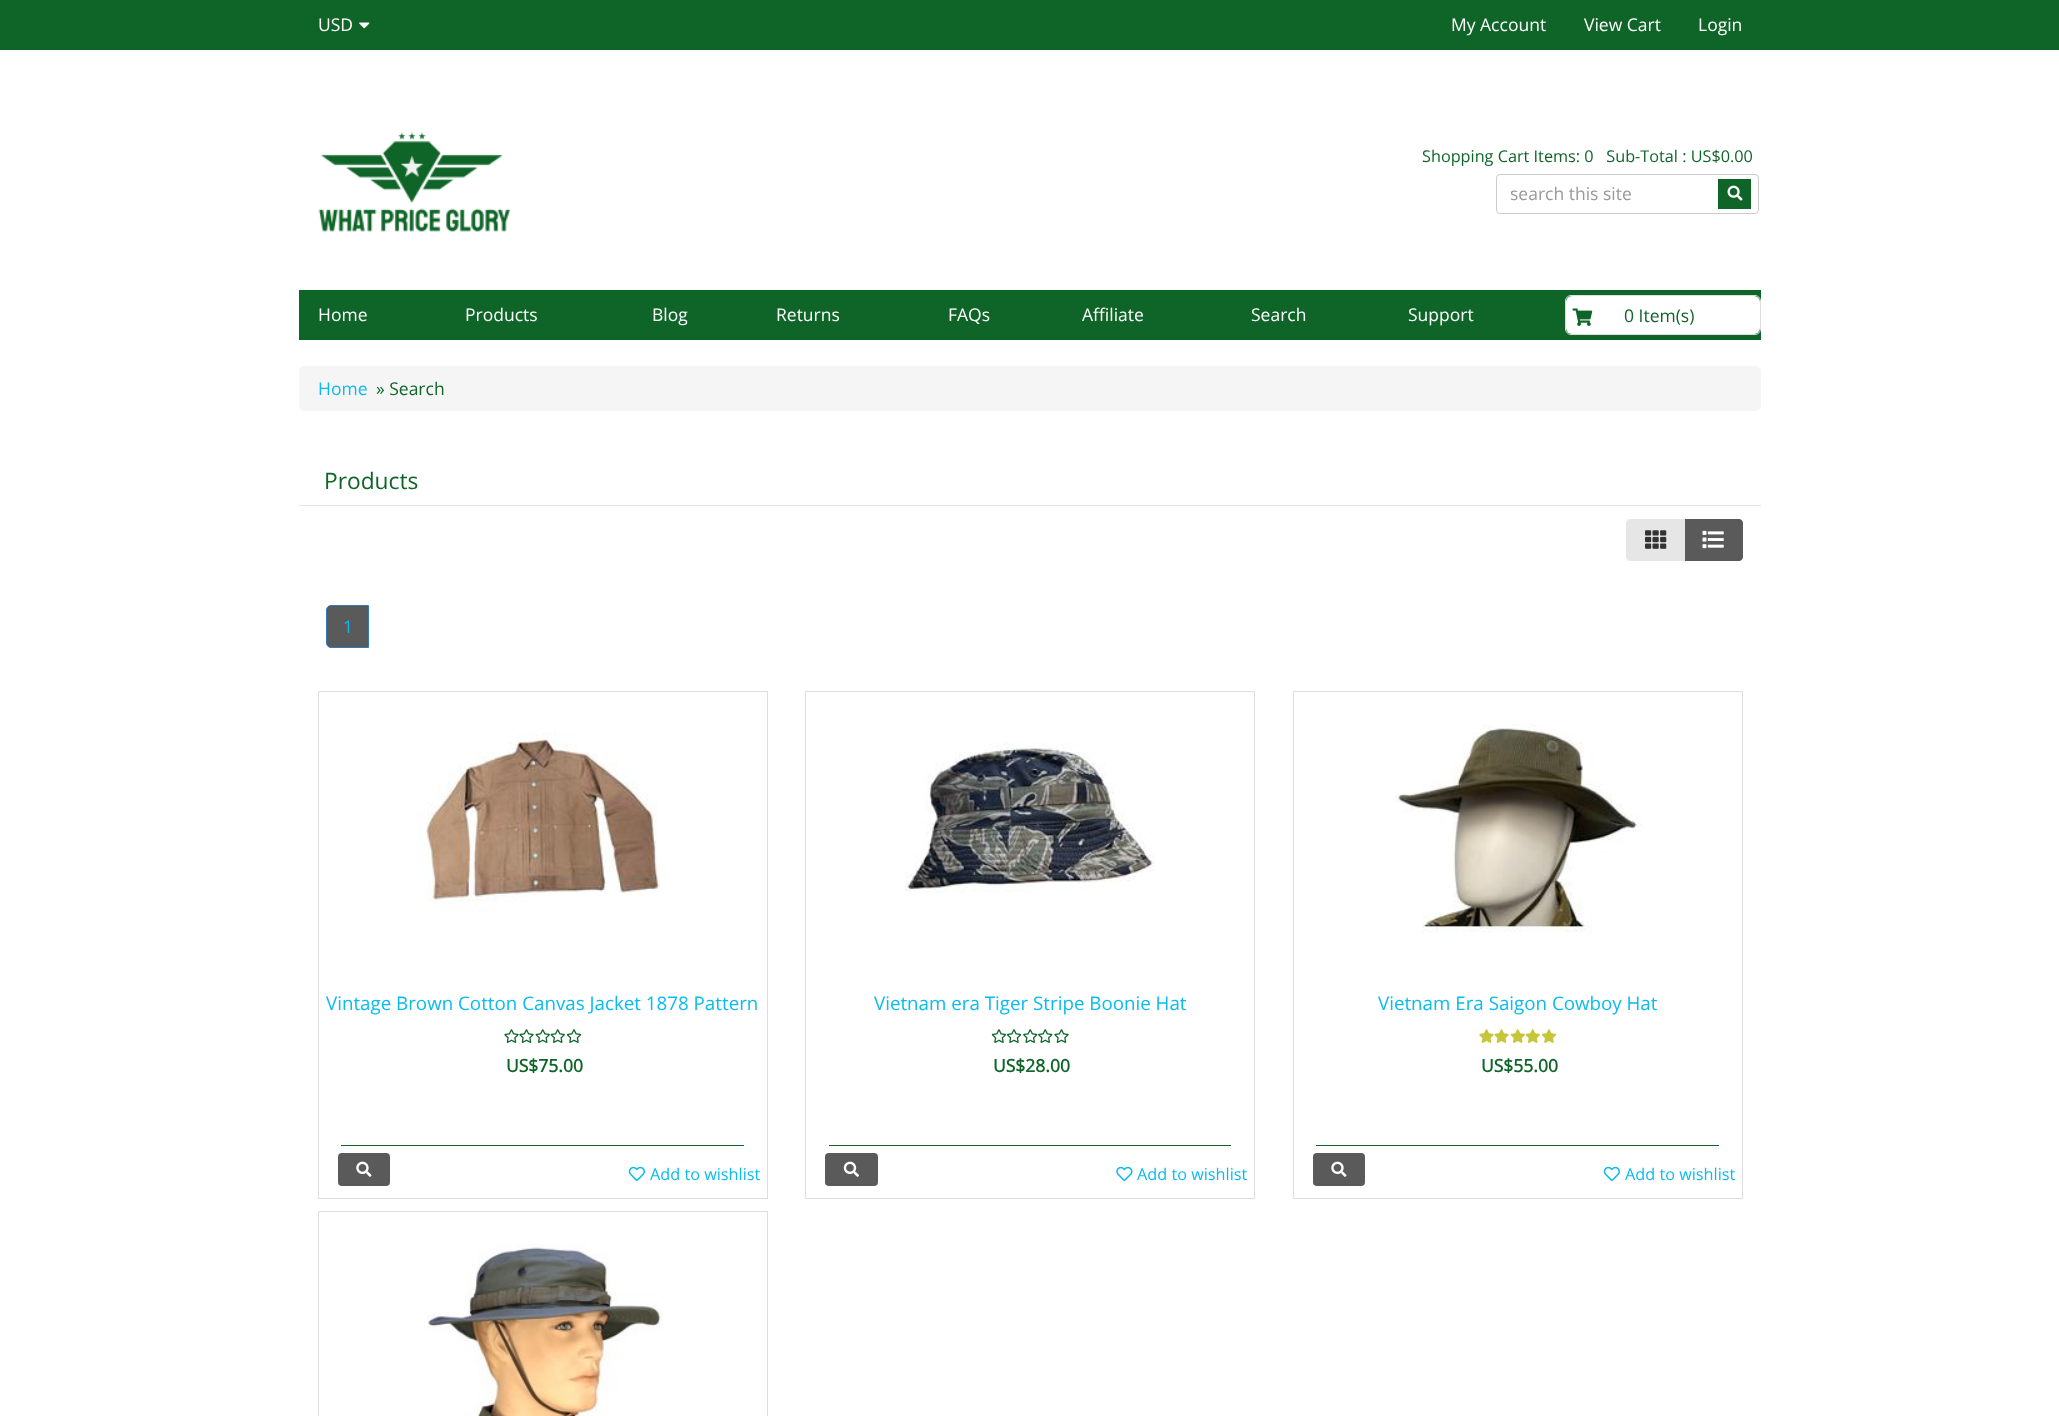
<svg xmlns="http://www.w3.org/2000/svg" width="2059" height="1416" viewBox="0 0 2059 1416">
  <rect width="100%" height="100%" fill="#fff"/>
  <path d="M0 0h2059v50H0z" fill="#0f6528"/>
  <image x="359" y="22" width="11" height="7" href="img/1.png"/>
  <image x="318" y="132" width="193" height="100" href="img/2.png"/>
  <rect x="1496.5" y="174.5" width="262" height="39" rx="3.5" fill="none" stroke="#ccc"/>
  <path d="M1718 179h33v30H1718z" fill="#0f6528"/>
  <image x="1727" y="185" width="16" height="16" href="img/3.png"/>
  <path d="M299 290h1462v50H299z" fill="#0f6528"/>
  <rect x="1565.5" y="295.5" width="195" height="39" rx="5.5" fill="none" stroke="#ddd"/>
  <rect x="1566" y="296" width="194" height="38" rx="6" fill="#fff"/>
  <image x="1572" y="308" width="21" height="18" href="img/4.png"/>
  <rect x="299" y="366" width="1462" height="45" rx="5" fill="#f5f5f5"/>
  <path d="M299 505h1462v1H299z" fill="#e7e7e7"/>
  <path d="M1684 519H1739C1741 519 1743 521 1743 523V557C1743 559 1741 561 1739 561H1684Z" fill="#5a5a5a"/>
  <path d="M1630 519H1685V561H1630C1628 561 1626 559 1626 557V523C1626 521 1628 519 1630 519Z" fill="#e6e6e6"/>
  <image x="1645" y="530" width="22" height="19" href="img/5.png"/>
  <image x="1702" y="530" width="22" height="19" href="img/6.png"/>
  <path d="M331 605.5H368.5V647.5H331C328.5 647.5 326.5 645.5 326.5 643V610C326.5 607.5 328.5 605.5 331 605.5Z" fill="#5a5a5a" stroke="#337ab7"/>
  <path d="M318.5 691.5h449v507H318.5z" fill="none" stroke="#ddd"/>
  <image x="417" y="732" width="243" height="181" href="img/7.png"/>
  <image x="504" y="1029" width="15" height="14" href="img/8.png"/>
  <image x="519" y="1029" width="15" height="14" href="img/8.png"/>
  <image x="535" y="1029" width="15" height="14" href="img/9.png"/>
  <image x="550" y="1029" width="15" height="14" href="img/9.png"/>
  <image x="566" y="1029" width="16" height="14" href="img/10.png"/>
  <path d="M341 1145h403v1H341z" fill="#0f6528"/>
  <rect x="338" y="1153" width="52" height="33" rx="4" fill="#5a5a5a"/>
  <image x="356" y="1161" width="16" height="16" href="img/11.png"/>
  <image x="628" y="1166" width="17" height="15" href="img/12.png"/>
  <path d="M805.5 691.5h449v507H805.5z" fill="none" stroke="#ddd"/>
  <image x="905" y="743" width="250" height="150" href="img/13.png"/>
  <image x="991" y="1029" width="16" height="14" href="img/10.png"/>
  <image x="1006" y="1029" width="16" height="14" href="img/14.png"/>
  <image x="1023" y="1029" width="15" height="14" href="img/15.png"/>
  <image x="1038" y="1029" width="15" height="14" href="img/15.png"/>
  <image x="1054" y="1029" width="15" height="14" href="img/8.png"/>
  <path d="M829 1145h402v1H829z" fill="#0f6528"/>
  <rect x="825" y="1153" width="53" height="33" rx="4" fill="#5a5a5a"/>
  <image x="843" y="1161" width="16" height="16" href="img/16.png"/>
  <image x="1116" y="1166" width="17" height="15" href="img/17.png"/>
  <path d="M1293.5 691.5h449v507H1293.5z" fill="none" stroke="#ddd"/>
  <image x="1395" y="724" width="248" height="209" href="img/18.png"/>
  <image x="1479" y="1029" width="15" height="14" href="img/19.png"/>
  <image x="1494" y="1029" width="15" height="14" href="img/19.png"/>
  <image x="1510" y="1029" width="15" height="14" href="img/20.png"/>
  <image x="1525" y="1029" width="15" height="14" href="img/20.png"/>
  <image x="1541" y="1029" width="16" height="14" href="img/21.png"/>
  <path d="M1316 1145h403v1H1316z" fill="#0f6528"/>
  <rect x="1313" y="1153" width="52" height="33" rx="4" fill="#5a5a5a"/>
  <image x="1331" y="1161" width="16" height="16" href="img/11.png"/>
  <image x="1603" y="1166" width="17" height="15" href="img/12.png"/>
  <path d="M318.5 1211.5h449v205H318.5z" fill="none" stroke="#ddd"/>
  <image x="425" y="1243" width="239" height="173" href="img/22.png"/>
  <g font-family="Open Sans" font-size="17.5" fill="#fff">
    <text x="318" y="31">USD</text>
    <text x="1451" y="31">My Account</text>
    <text x="1584" y="31">View Cart</text>
    <text x="1698" y="31">Login</text>
  </g>
  <text x="1422" y="162" font-family="Open Sans" font-size="16.25" fill="#0f6528" xml:space="preserve">Shopping Cart Items: 0   Sub-Total : US$0.00</text>
  <text x="1510" y="200" font-family="Open Sans" font-size="17.5" fill="#999">search this site</text>
  <g font-family="Open Sans" font-size="17.5" fill="#fff">
    <text x="318" y="321">Home</text>
    <text x="465" y="321">Products</text>
    <text x="652" y="321">Blog</text>
    <text x="776" y="321">Returns</text>
    <text x="948" y="321">FAQs</text>
    <text x="1082" y="321">Affiliate</text>
    <text x="1251" y="321">Search</text>
    <text x="1408" y="321">Support</text>
  </g>
  <text x="1624" y="322" font-family="Open Sans" font-size="17.5" fill="#0f6528">0 Item(s)</text>
  <text x="318" y="395" font-family="Open Sans" font-size="17.5" fill="#0bbbef">Home</text>
  <text x="376" y="395" font-family="Open Sans" font-size="17.5" fill="#0f6528">» Search</text>
  <text x="324" y="489" font-family="Open Sans" font-size="22.75" fill="#0f6528">Products</text>
  <text x="343" y="633" font-family="Open Sans" font-size="17.5" fill="#0bbbef">1</text>
  <text x="326" y="1010" font-family="Open Sans" font-size="18.75" fill="#0bbbef">Vintage Brown Cotton Canvas Jacket 1878 Pattern</text>
  <text x="506" y="1072" font-family="Open Sans" font-size="17.5" font-weight="bold" fill="#0f6528">US$75.00</text>
  <text x="650" y="1180" font-family="Open Sans" font-size="16.25" fill="#0bbbef">Add to wishlist</text>
  <text x="874" y="1010" font-family="Open Sans" font-size="18.75" fill="#0bbbef">Vietnam era Tiger Stripe Boonie Hat</text>
  <text x="993" y="1072" font-family="Open Sans" font-size="17.5" font-weight="bold" fill="#0f6528">US$28.00</text>
  <text x="1137" y="1180" font-family="Open Sans" font-size="16.25" fill="#0bbbef">Add to wishlist</text>
  <text x="1378" y="1010" font-family="Open Sans" font-size="18.75" fill="#0bbbef">Vietnam Era Saigon Cowboy Hat</text>
  <text x="1481" y="1072" font-family="Open Sans" font-size="17.5" font-weight="bold" fill="#0f6528">US$55.00</text>
  <text x="1625" y="1180" font-family="Open Sans" font-size="16.25" fill="#0bbbef">Add to wishlist</text>
</svg>
